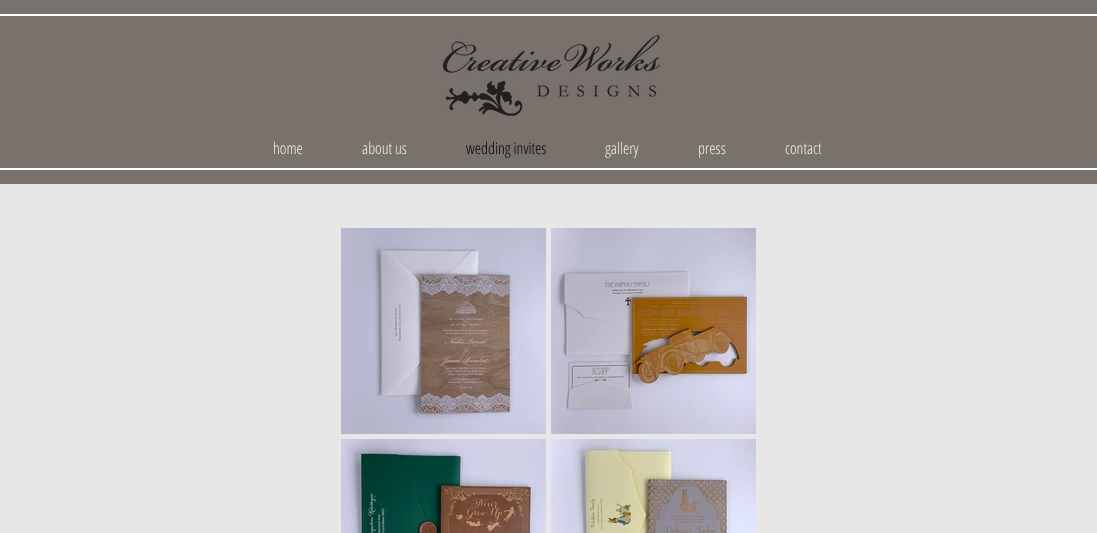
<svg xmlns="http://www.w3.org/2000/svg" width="1097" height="533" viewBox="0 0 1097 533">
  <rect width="100%" height="100%" fill="#e8e6e6"/>
  <path d="M0 0h1097v184H0z" fill="#78716c"/>
  <path d="M0 14h1097v2H0z" fill="#fff"/>
  <path d="M0 168h1097v2H0z" fill="#fff"/>
  <image x="442" y="35" width="218" height="81" href="img/1.png"/>
  <image x="341" y="228" width="205" height="206" href="img/2.png"/>
  <image x="341" y="439" width="205" height="94" href="img/3.png"/>
  <image x="551" y="228" width="205" height="206" href="img/4.png"/>
  <image x="551" y="439" width="205" height="94" href="img/5.png"/>
  <g font-family="Open Sans Condensed" font-size="16" font-weight="300" fill="#e5fad1">
    <text x="273" y="154">home</text>
    <text x="362" y="154">about us</text>
  </g>
  <text x="466" y="154" font-family="Open Sans Condensed" font-size="16" font-weight="300" fill="#000">wedding invites</text>
  <g font-family="Open Sans Condensed" font-size="16" font-weight="300" fill="#e5fad1">
    <text x="605" y="154">gallery</text>
    <text x="698" y="154">press</text>
    <text x="785" y="154">contact</text>
  </g>
</svg>
